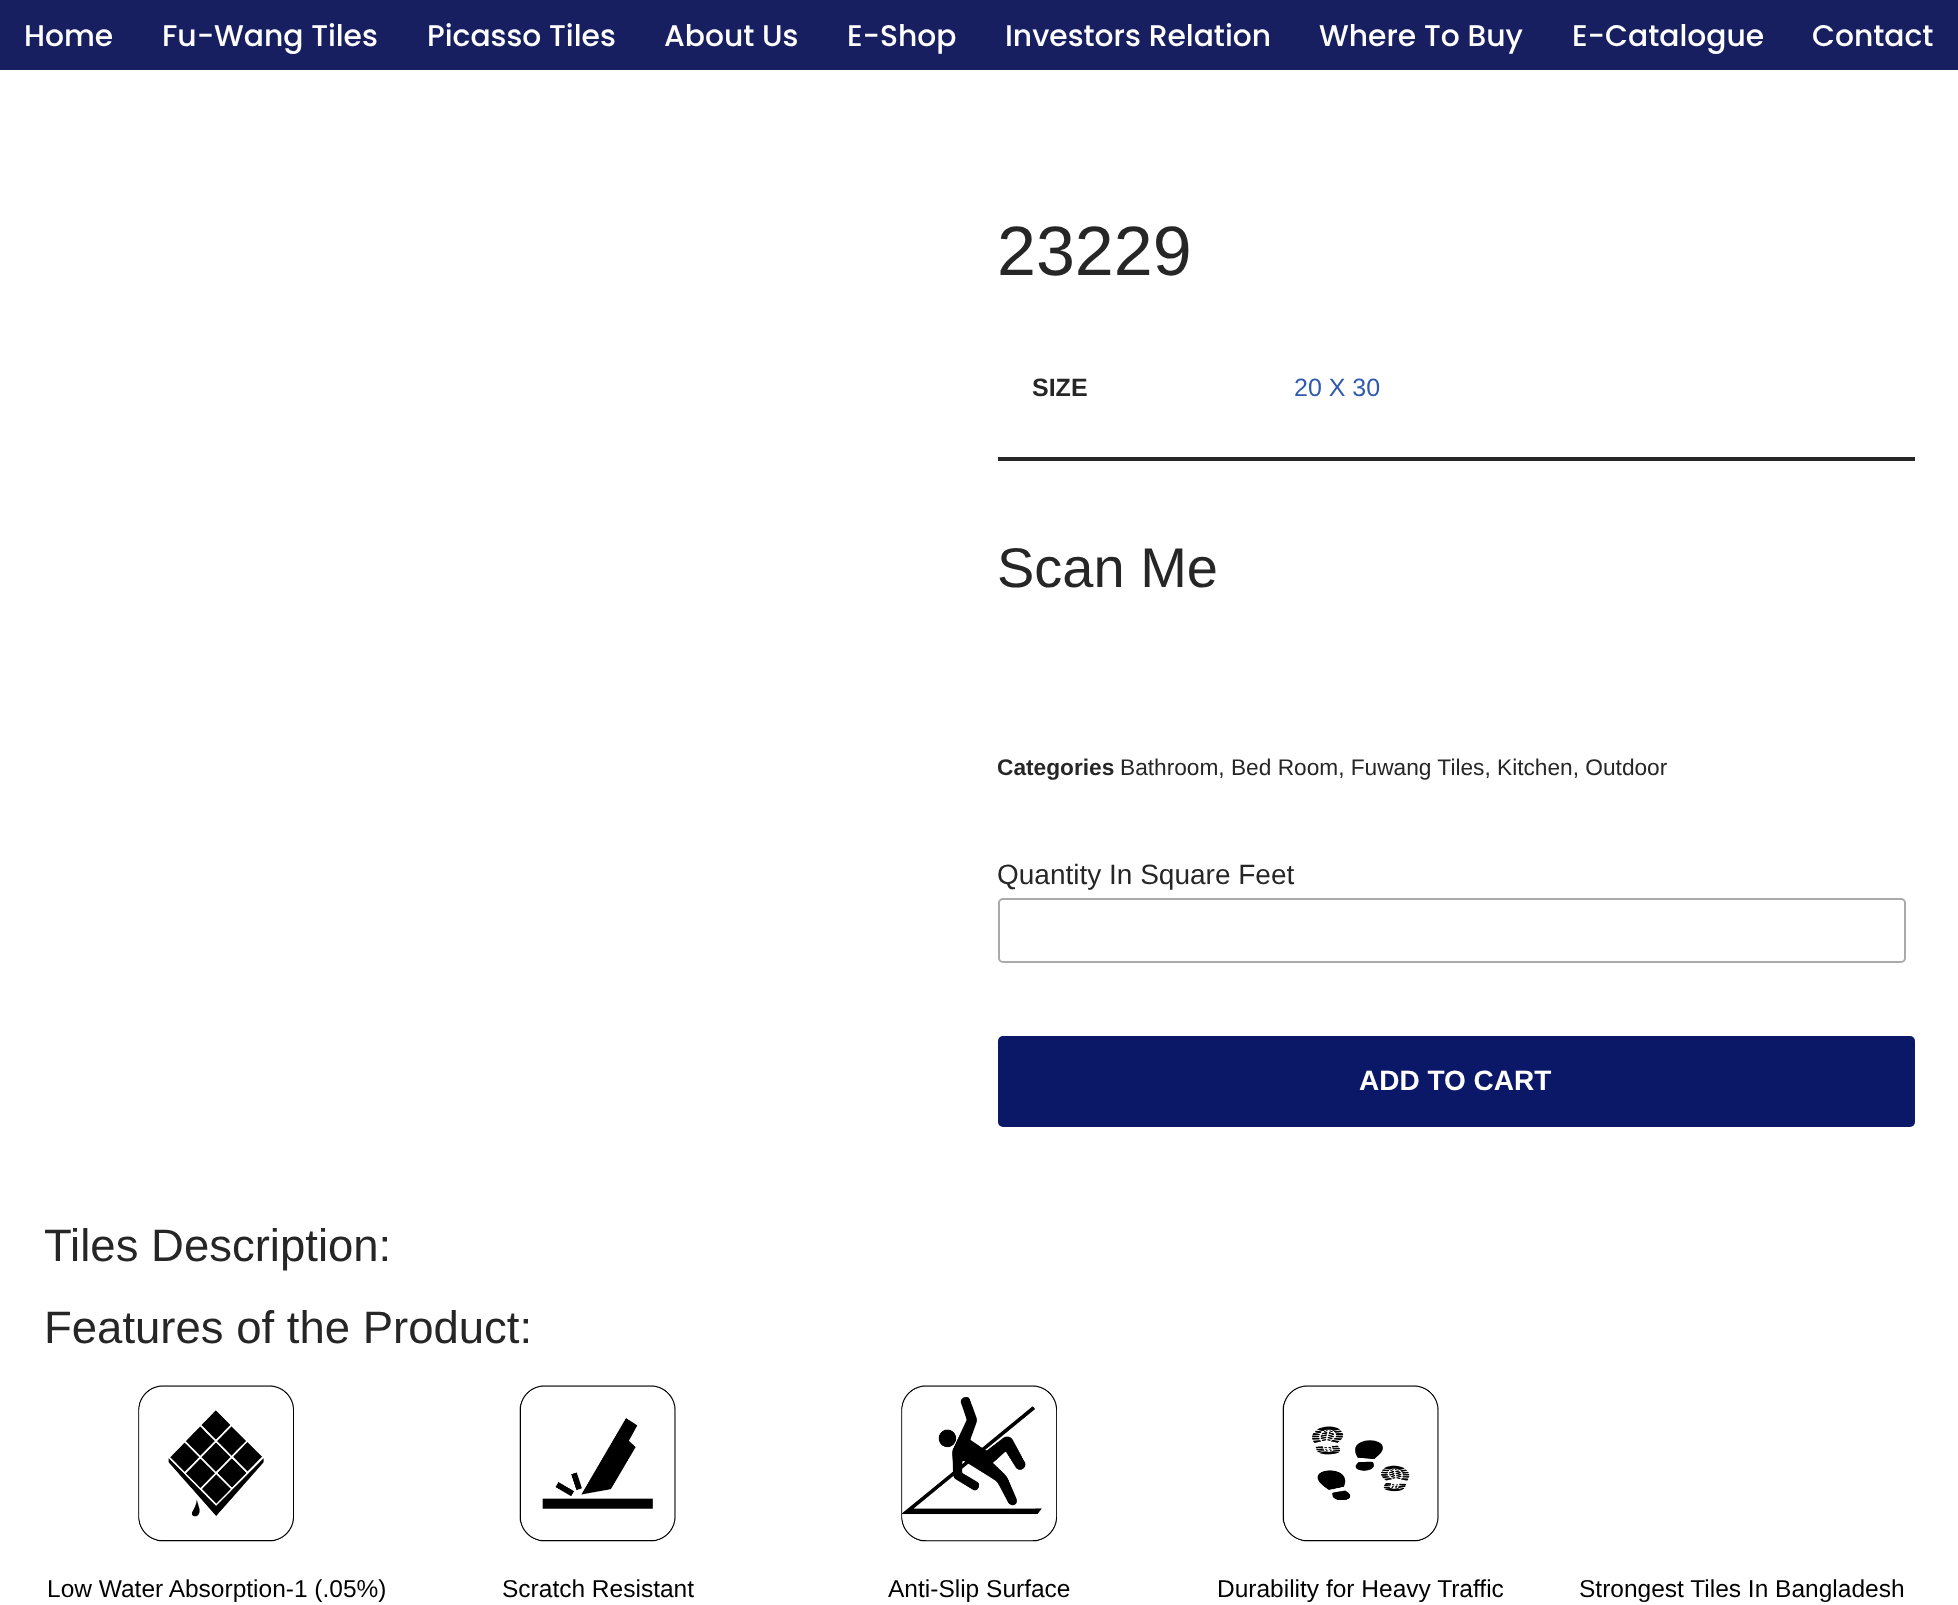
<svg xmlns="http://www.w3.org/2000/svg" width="1958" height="1605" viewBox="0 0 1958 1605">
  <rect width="100%" height="100%" fill="#fff"/>
  <path d="M0 0h1958v70H0z" fill="#171f60"/>
  <path d="M998 457h917v4H998z" fill="#272626"/>
  <rect x="999" y="899" width="906" height="63" rx="4" fill="none" stroke="#aaa" stroke-width="2"/>
  <rect x="998" y="1036" width="917" height="91" rx="5" fill="#0b1868"/>
  <image x="138" y="1385" width="156" height="157" href="img/1.png"/>
  <image x="519" y="1385" width="157" height="157" href="img/2.png"/>
  <image x="901" y="1385" width="156" height="157" href="img/3.png"/>
  <image x="1282" y="1385" width="157" height="157" href="img/4.png"/>
  <g font-family="Poppins" font-size="29.75" font-weight="500" fill="#fff">
    <text x="24" y="46">Home</text>
    <text x="162" y="46">Fu-Wang Tiles</text>
    <text x="427" y="46">Picasso Tiles</text>
    <text x="664" y="46">About Us</text>
    <text x="847" y="46">E-Shop</text>
    <text x="1005" y="46">Investors Relation</text>
    <text x="1319" y="46">Where To Buy</text>
    <text x="1572" y="46">E-Catalogue</text>
    <text x="1812" y="46">Contact</text>
  </g>
  <text x="997" y="275" font-family="Liberation Sans" font-size="70" fill="#272626">23229</text>
  <text x="1032" y="396" font-family="Liberation Sans" font-size="25" font-weight="bold" fill="#272626">SIZE</text>
  <text x="1294" y="396" font-family="Liberation Sans" font-size="25" fill="#2f5aae">20 X 30</text>
  <text x="997" y="587" font-family="Liberation Sans" font-size="56" fill="#272626">Scan Me</text>
  <text x="997" y="775" font-family="Liberation Sans" font-size="22.7" font-weight="bold" fill="#272626">Categories</text>
  <text x="1120" y="775" font-family="Liberation Sans" font-size="22.7" fill="#272626">Bathroom, Bed Room, Fuwang Tiles, Kitchen, Outdoor</text>
  <text x="997" y="884" font-family="Liberation Sans" font-size="28" fill="#272626">Quantity In Square Feet</text>
  <text x="1359" y="1090" font-family="Liberation Sans" font-size="28" font-weight="bold" fill="#fff">ADD TO CART</text>
  <g font-family="Liberation Sans" font-size="45.5" fill="#272626">
    <text x="44" y="1261">Tiles Description:</text>
    <text x="44" y="1343">Features of the Product:</text>
  </g>
  <g font-family="Liberation Sans" font-size="24.5" fill="#000">
    <text x="47" y="1597">Low Water Absorption-1 (.05%)</text>
    <text x="502" y="1597">Scratch Resistant</text>
    <text x="888" y="1597">Anti-Slip Surface</text>
    <text x="1217" y="1597">Durability for Heavy Traffic</text>
    <text x="1579" y="1597">Strongest Tiles In Bangladesh</text>
  </g>
</svg>
